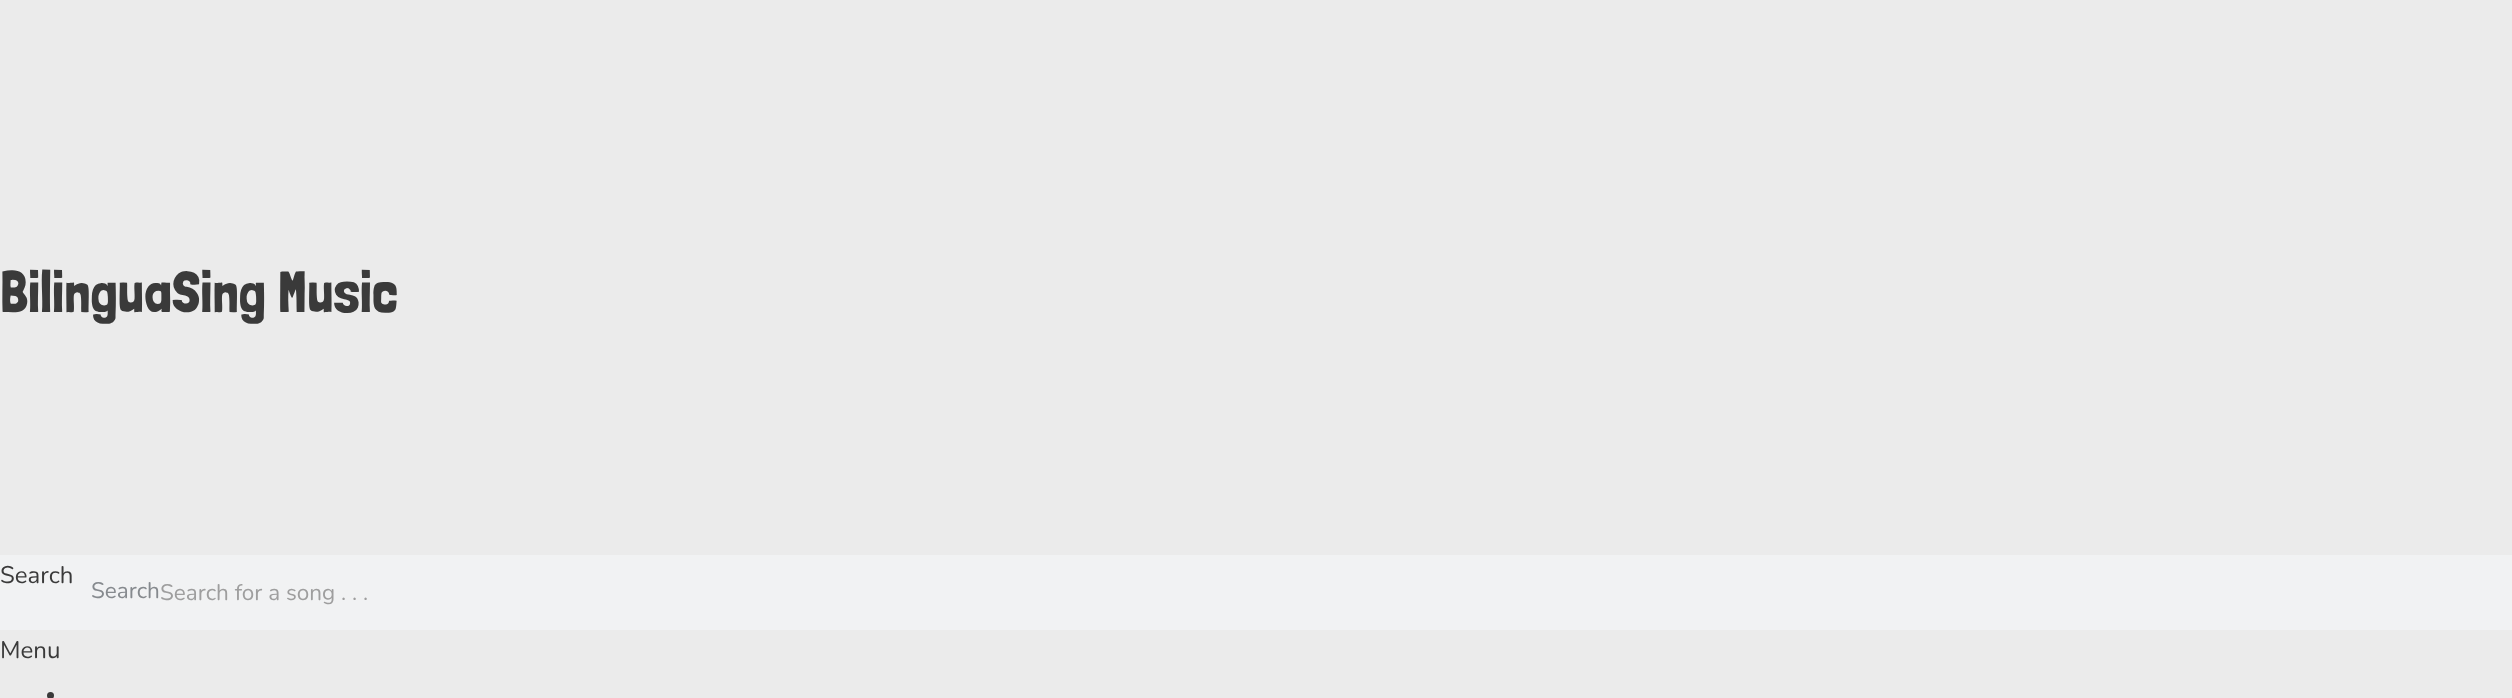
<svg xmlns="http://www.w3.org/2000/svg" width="2512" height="698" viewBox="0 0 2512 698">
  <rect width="100%" height="100%" fill="#ebebeb"/>
  <path d="M0 555h2512v75H0z" fill="#f1f2f3"/>
  <circle cx="50.5" cy="695.5" r="3.5" fill="#3a3a3a"/>
  <text x="0" y="312" font-family="Londrina Solid" font-size="58.5" fill="#3a3a3a">BilinguaSing Music</text>
  <text x="0" y="583" font-family="Nunito" font-size="24" fill="#3a3a3a">Search</text>
  <text x="91" y="598" font-family="Nunito" font-size="22.5" fill="#868a8e">Search</text>
  <text x="160" y="600" font-family="Nunito" font-size="22.5" fill="#9e9e9e">Search for a song . . .</text>
  <text x="0" y="658" font-family="Nunito" font-size="24" fill="#3a3a3a">Menu</text>
</svg>
